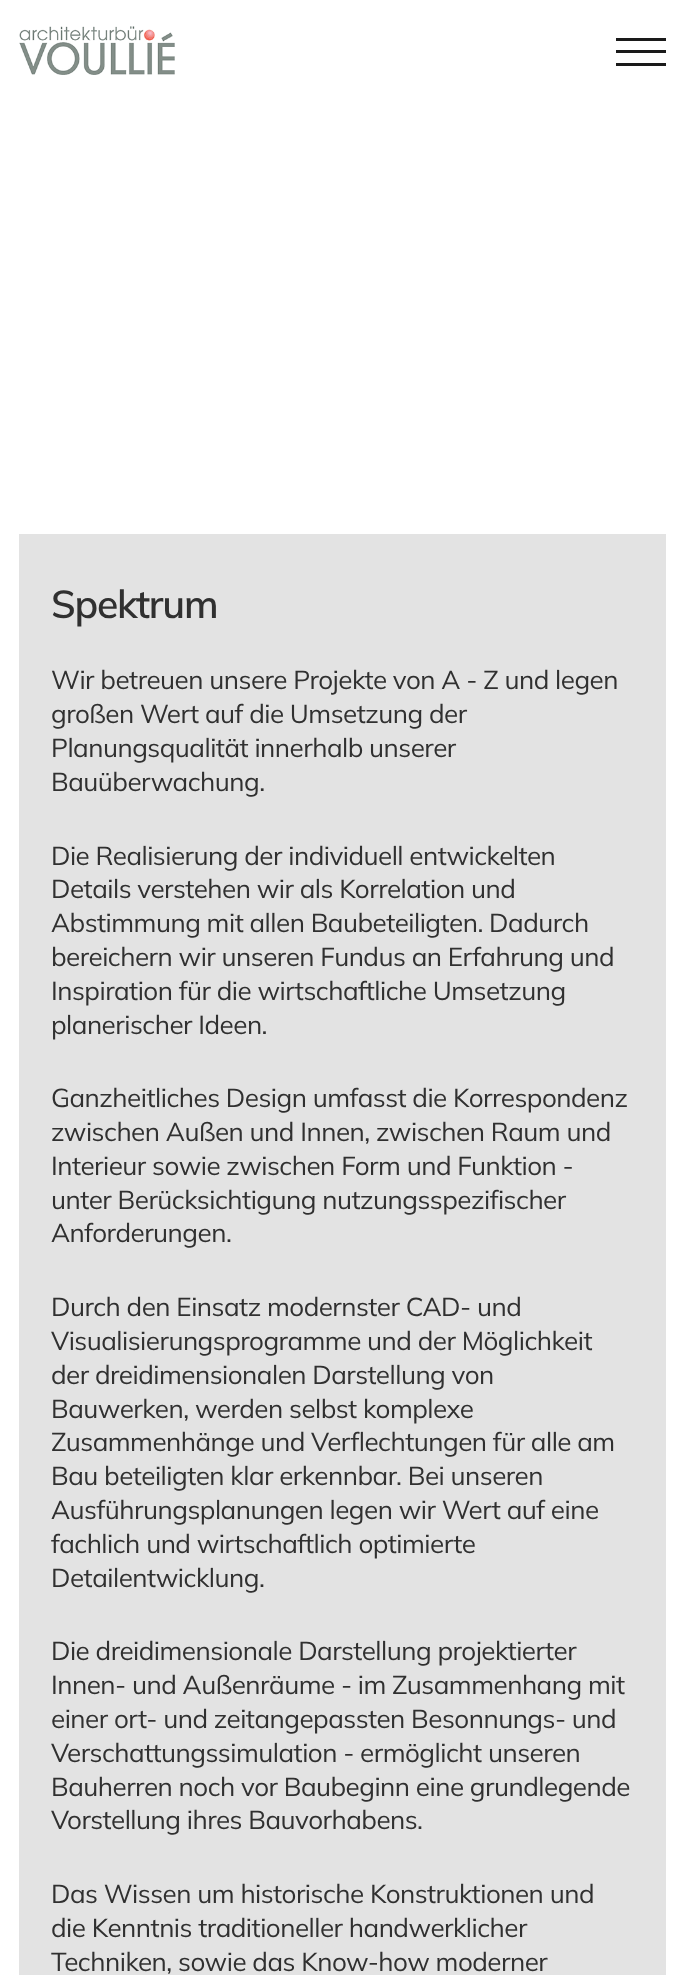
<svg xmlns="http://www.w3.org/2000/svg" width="685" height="1975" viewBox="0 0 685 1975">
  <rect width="100%" height="100%" fill="#fff"/>
  <image x="19" y="26" width="156" height="49" href="img/1.png"/>
  <path d="M616 38h50v3H616z" fill="#1a1a1a"/>
  <path d="M616 50h50v3H616z" fill="#1a1a1a"/>
  <path d="M616 63h50v3H616z" fill="#1a1a1a"/>
  <path d="M19 534h647v1441H19z" fill="#e3e3e3"/>
  <text x="51" y="618" font-family="Mulish" font-size="39" font-weight="600" letter-spacing="-1.25" fill="#303030">Spektrum</text>
  <g font-family="Mulish" font-size="26" font-weight="200" letter-spacing="-0.5" fill="#303030">
    <text x="51" y="689">Wir betreuen unsere Projekte von A - Z und legen</text>
    <text x="51" y="723">großen Wert auf die Umsetzung der</text>
    <text x="51" y="757">Planungsqualität innerhalb unserer</text>
    <text x="51" y="791">Bauüberwachung.</text>
    <text x="51" y="865">Die Realisierung der individuell entwickelten</text>
    <text x="51" y="898">Details verstehen wir als Korrelation und</text>
    <text x="51" y="932">Abstimmung mit allen Baubeteiligten. Dadurch</text>
    <text x="51" y="966">bereichern wir unseren Fundus an Erfahrung und</text>
    <text x="51" y="1000">Inspiration für die wirtschaftliche Umsetzung</text>
    <text x="51" y="1034">planerischer Ideen.</text>
    <text x="51" y="1107">Ganzheitliches Design umfasst die Korrespondenz</text>
    <text x="51" y="1141">zwischen Außen und Innen, zwischen Raum und</text>
    <text x="51" y="1175">Interieur sowie zwischen Form und Funktion -</text>
    <text x="51" y="1209">unter Berücksichtigung nutzungsspezifischer</text>
    <text x="51" y="1242">Anforderungen.</text>
    <text x="51" y="1316">Durch den Einsatz modernster CAD- und</text>
    <text x="51" y="1350">Visualisierungsprogramme und der Möglichkeit</text>
    <text x="51" y="1384">der dreidimensionalen Darstellung von</text>
    <text x="51" y="1418">Bauwerken, werden selbst komplexe</text>
    <text x="51" y="1451">Zusammenhänge und Verflechtungen für alle am</text>
    <text x="51" y="1485">Bau beteiligten klar erkennbar. Bei unseren</text>
    <text x="51" y="1519">Ausführungsplanungen legen wir Wert auf eine</text>
    <text x="51" y="1553">fachlich und wirtschaftlich optimierte</text>
    <text x="51" y="1587">Detailentwicklung.</text>
    <text x="51" y="1660">Die dreidimensionale Darstellung projektierter</text>
    <text x="51" y="1694">Innen- und Außenräume - im Zusammenhang mit</text>
    <text x="51" y="1728">einer ort- und zeitangepassten Besonnungs- und</text>
    <text x="51" y="1762">Verschattungssimulation - ermöglicht unseren</text>
    <text x="51" y="1796">Bauherren noch vor Baubeginn eine grundlegende</text>
    <text x="51" y="1829">Vorstellung ihres Bauvorhabens.</text>
    <text x="51" y="1903">Das Wissen um historische Konstruktionen und</text>
    <text x="51" y="1937">die Kenntnis traditioneller handwerklicher</text>
    <text x="51" y="1971">Techniken, sowie das Know-how moderner</text>
  </g>
</svg>
